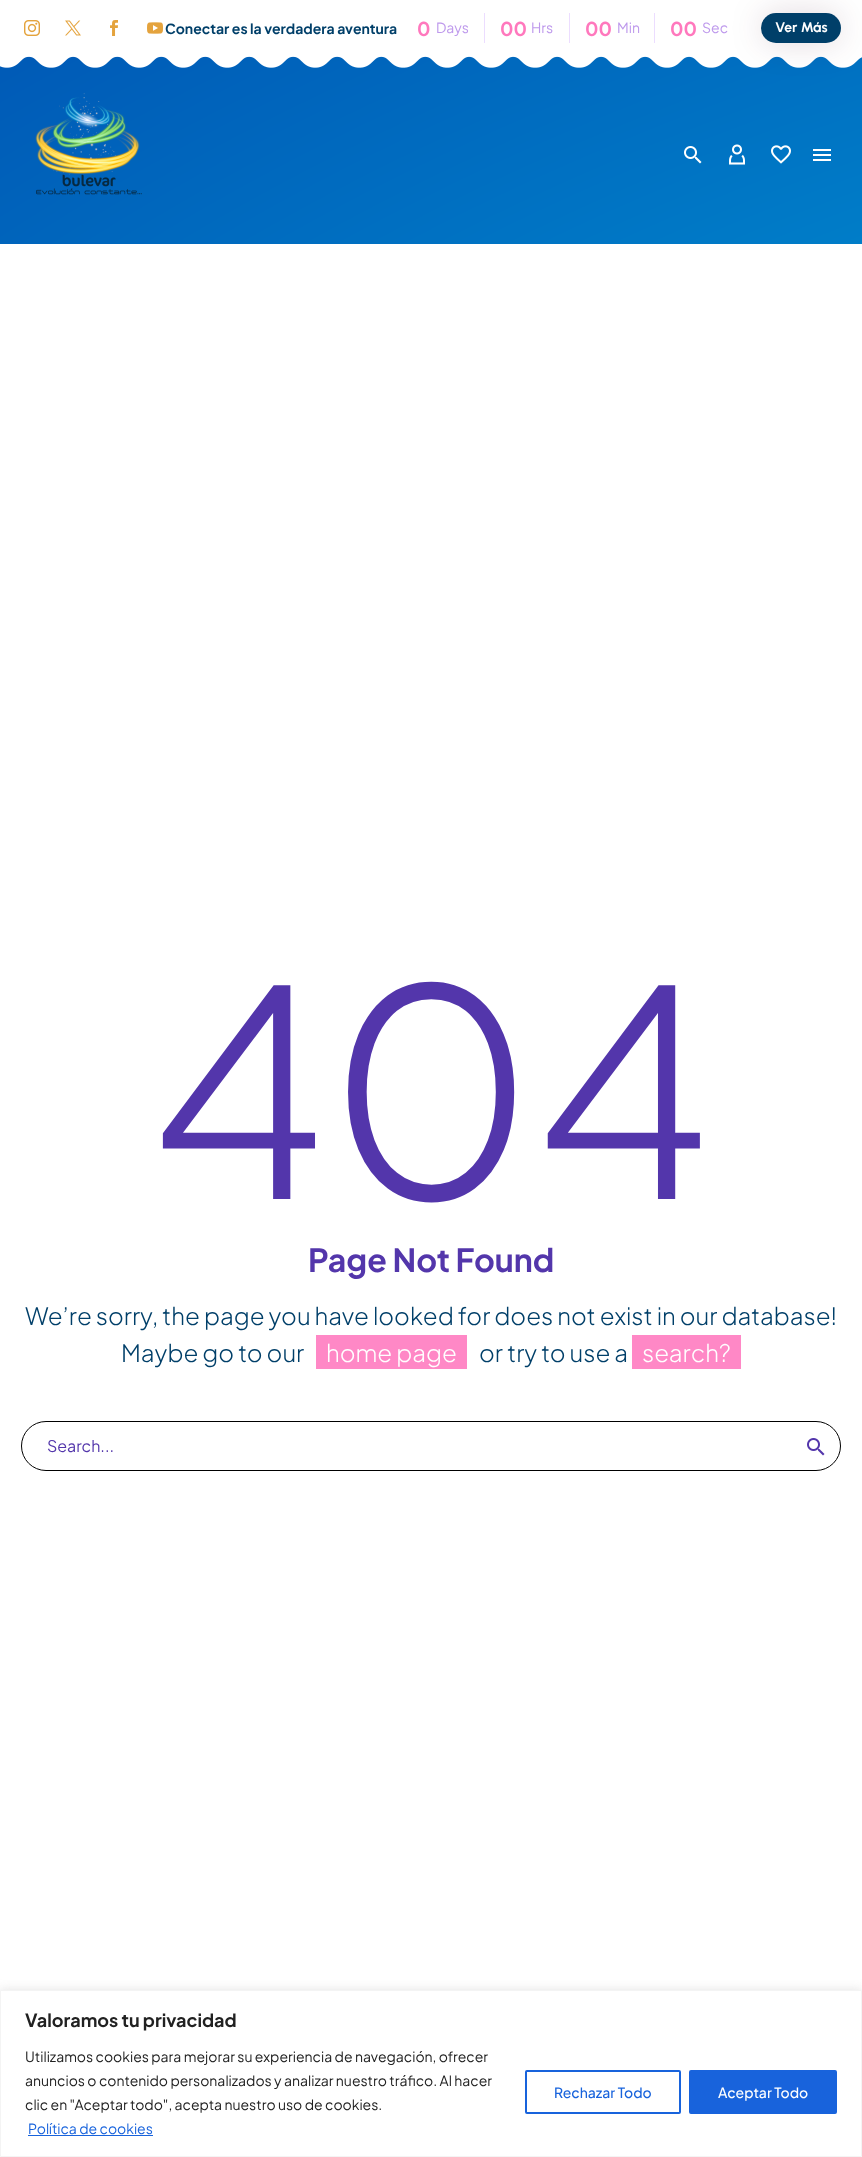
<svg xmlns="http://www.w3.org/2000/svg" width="862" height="2157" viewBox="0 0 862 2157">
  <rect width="100%" height="100%" fill="#fff"/>
  <image x="0" y="56" width="862" height="188" href="img/6.png"/>
  <image x="0" y="52" width="862" height="16" href="img/1.png"/>
  <image x="24" y="20" width="16" height="16" href="img/2.png"/>
  <image x="65" y="20" width="16" height="16" href="img/3.png"/>
  <image x="110" y="20" width="8" height="16" href="img/4.png"/>
  <image x="147" y="22" width="16" height="12" href="img/5.png"/>
  <path d="M484 13h1v30H484z" fill="#ecddff"/>
  <path d="M569 13h1v30H569z" fill="#ecddff"/>
  <path d="M654 13h1v30H654z" fill="#ecddff"/>
  <rect x="761" y="13" width="80" height="30" rx="15" fill="#39052026" filter="blur(16.5px)"/>
  <rect x="761" y="13" width="80" height="30" rx="15" fill="#003f69"/>
  <image x="35" y="93" width="107" height="102" href="img/7.png"/>
  <image x="684" y="146" width="18" height="18" href="img/8.png"/>
  <image x="729" y="144" width="16" height="21" href="img/9.png"/>
  <image x="771" y="145" width="20" height="19" href="img/10.png"/>
  <path d="M813 149h18v2H813z" fill="#fff"/>
  <path d="M813 154h18v2H813z" fill="#fff"/>
  <path d="M813 159h18v2H813z" fill="#fff"/>
  <path d="M316 1335h151v34H316z" fill="#ff88c6"/>
  <path d="M632 1335h109v34H632z" fill="#ff88c6"/>
  <rect x="21.5" y="1421.5" width="819" height="49" rx="24.5" fill="none" stroke="#000"/>
  <image x="807" y="1438" width="18" height="18" href="img/11.png"/>
  <path d="M0 1989h862v167H0z" fill="#acabab4d" filter="blur(5px)"/>
  <path d="M0.5 1990.5h861v166H0.5z" fill="#fff" stroke="#f4f4f4"/>
  <path d="M28 2135h125v1H28z" fill="#1863dc"/>
  <rect x="526" y="2071" width="154" height="42" rx="1" fill="none" stroke="#1863dc" stroke-width="2"/>
  <rect x="690" y="2071" width="146" height="42" rx="1" fill="#1863dc" stroke="#1863dc" stroke-width="2"/>
  <text x="165" y="34" font-family="Plus Jakarta Sans" font-size="14" font-weight="bold" fill="#003f69">Conectar es la verdadera aventura</text>
  <text x="417" y="36" font-family="Plus Jakarta Sans" font-size="19" font-weight="bold" fill="#ff78bd">0</text>
  <text x="436" y="33" font-family="Plus Jakarta Sans" font-size="14" fill="#be99ec">Days</text>
  <text x="500" y="36" font-family="Plus Jakarta Sans" font-size="19" font-weight="bold" fill="#ff78bd">00</text>
  <text x="531" y="33" font-family="Plus Jakarta Sans" font-size="14" fill="#be99ec">Hrs</text>
  <text x="585" y="36" font-family="Plus Jakarta Sans" font-size="19" font-weight="bold" fill="#ff78bd">00</text>
  <text x="617" y="33" font-family="Plus Jakarta Sans" font-size="14" fill="#be99ec">Min</text>
  <text x="670" y="36" font-family="Plus Jakarta Sans" font-size="19" font-weight="bold" fill="#ff78bd">00</text>
  <text x="702" y="33" font-family="Plus Jakarta Sans" font-size="14" fill="#be99ec">Sec</text>
  <text x="775" y="32" font-family="Urbanist" font-size="14" font-weight="bold" fill="#fff">Ver Más</text>
  <text x="150" y="1199" font-family="Plus Jakarta Sans" font-size="287" font-weight="300" fill="#5336ab">404</text>
  <text x="308" y="1272" font-family="Plus Jakarta Sans" font-size="32" font-weight="bold" fill="#5336ab">Page Not Found</text>
  <g font-family="Plus Jakarta Sans" font-size="24" font-weight="300" fill="#003f69">
    <text x="25" y="1325">We’re sorry, the page you have looked for does not exist in our database!</text>
    <text x="121" y="1362">Maybe go to our</text>
  </g>
  <text x="326" y="1362" font-family="Plus Jakarta Sans" font-size="24" font-weight="300" fill="#fff">home page</text>
  <text x="479" y="1362" font-family="Plus Jakarta Sans" font-size="24" font-weight="300" fill="#003f69">or try to use a</text>
  <text x="642" y="1362" font-family="Plus Jakarta Sans" font-size="24" font-weight="300" fill="#fff">search?</text>
  <text x="47" y="1452" font-family="Plus Jakarta Sans" font-size="16" fill="#5336ab">Search...</text>
  <text x="25" y="2027" font-family="Plus Jakarta Sans" font-size="18" font-weight="bold" fill="#212121">Valoramos tu privacidad</text>
  <g font-family="Plus Jakarta Sans" font-size="14" fill="#212121">
    <text x="25" y="2062">Utilizamos cookies para mejorar su experiencia de navegación, ofrecer</text>
    <text x="25" y="2086">anuncios o contenido personalizados y analizar nuestro tráfico. Al hacer</text>
    <text x="25" y="2110">clic en "Aceptar todo", acepta nuestro uso de cookies.</text>
  </g>
  <text x="28" y="2134" font-family="Plus Jakarta Sans" font-size="14" fill="#1863dc">Política de cookies</text>
  <text x="554" y="2098" font-family="Plus Jakarta Sans" font-size="14" font-weight="500" fill="#1863dc">Rechazar Todo</text>
  <text x="718" y="2098" font-family="Plus Jakarta Sans" font-size="14" font-weight="500" fill="#fff">Aceptar Todo</text>
</svg>
